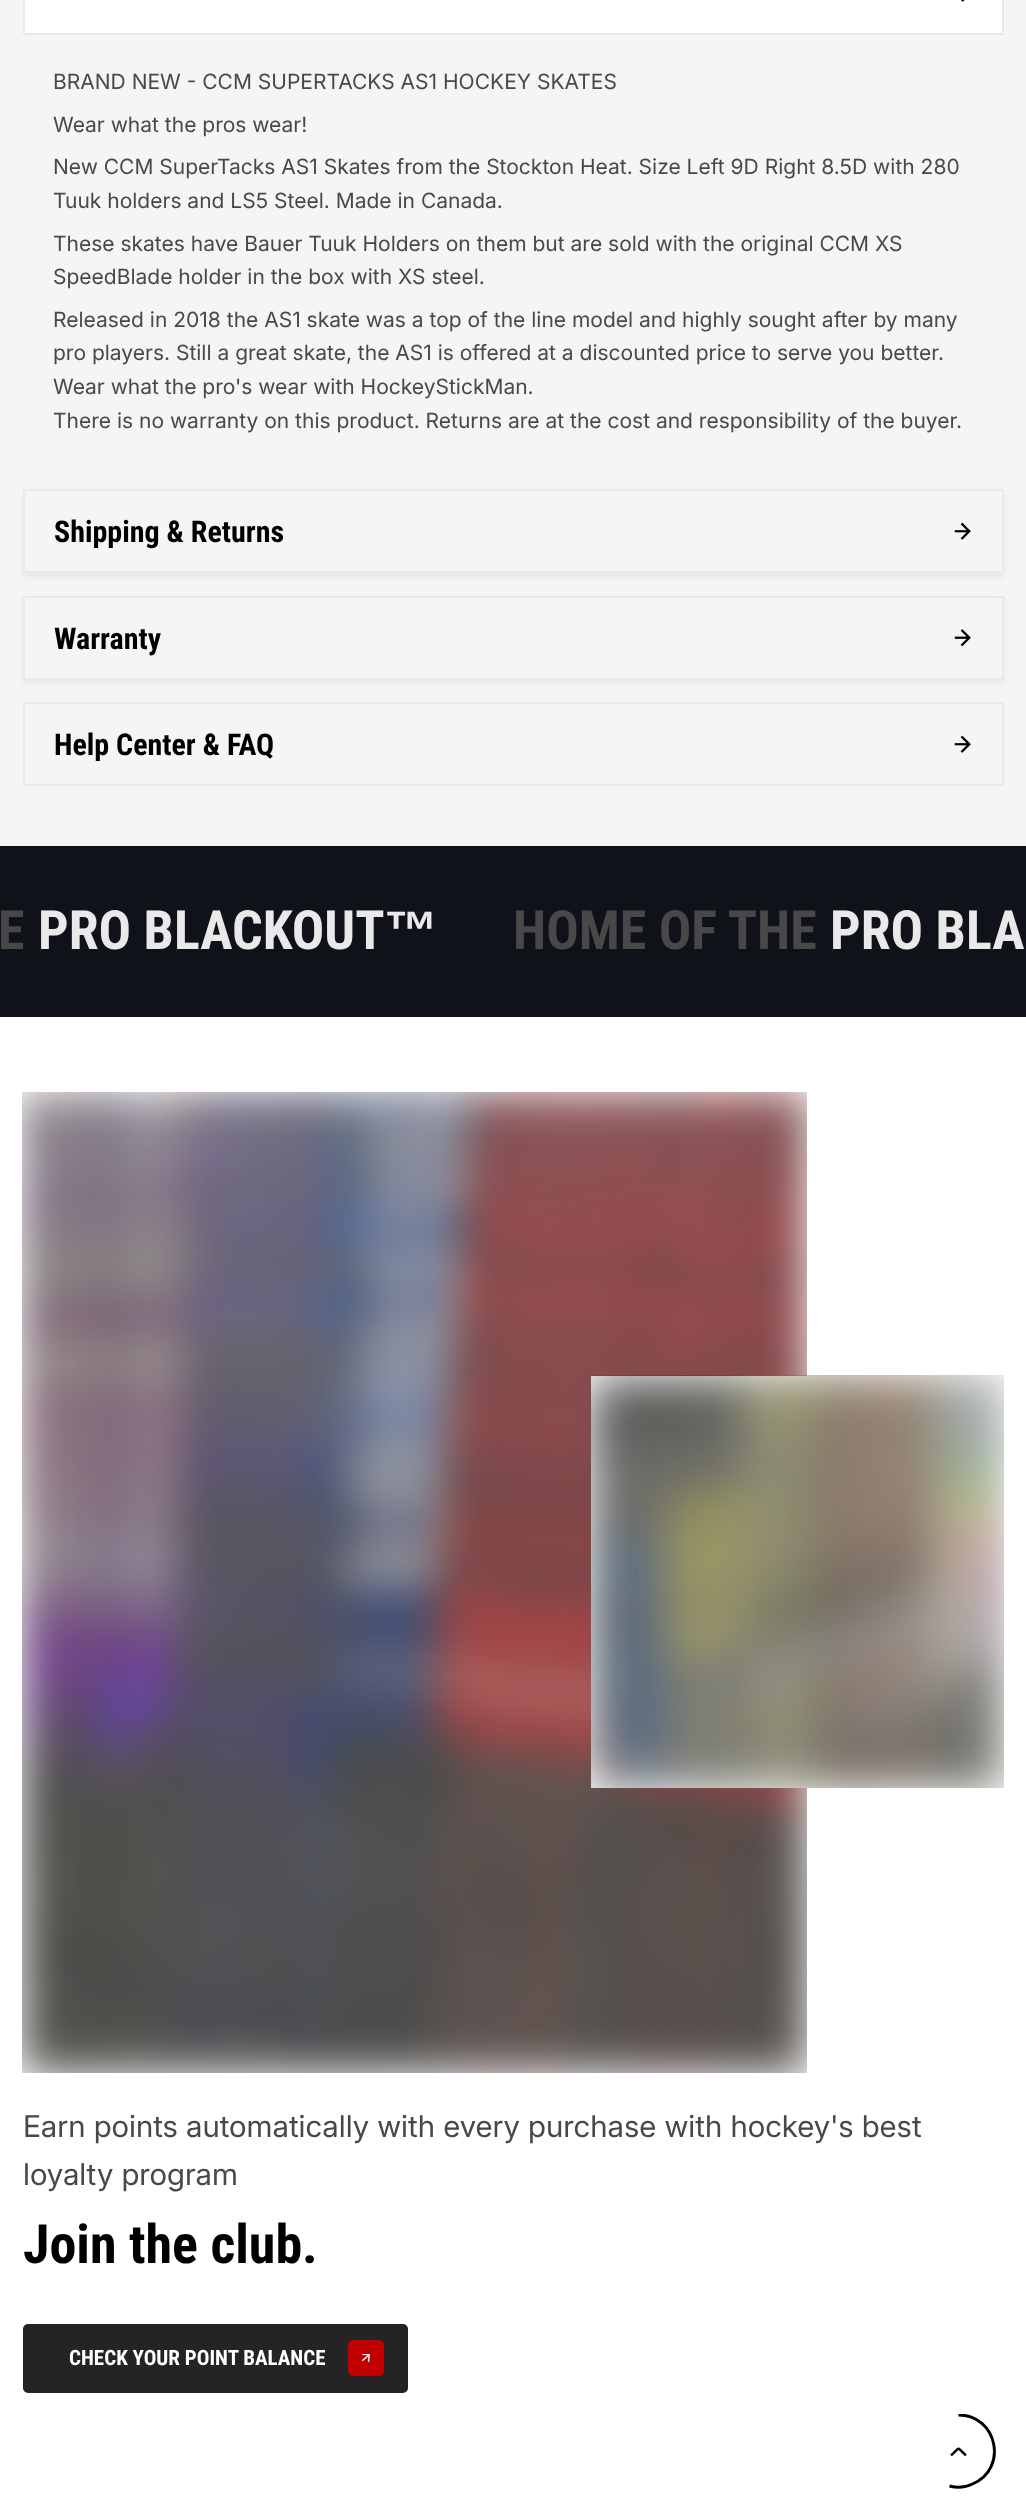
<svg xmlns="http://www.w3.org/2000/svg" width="1026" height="2503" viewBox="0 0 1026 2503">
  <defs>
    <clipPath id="clip1"><path d="M921 2414h75v75H921z"/></clipPath>
  </defs>
  <rect width="100%" height="100%" fill="#fff"/>
  <path d="M0 0h1026v846H0z" fill="#f5f5f5"/>
  <path d="M24 -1h979v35H24z" fill="#fff" stroke="#e9e9e9" stroke-width="2"/>
  <image x="961" y="0" width="4" height="2" href="img/1.png"/>
  <path d="M23 494h981v84H23z" fill="#0000000d" filter="blur(3px)"/>
  <path d="M25 492h977v79H25z" fill="#f5f5f5"/>
  <path d="M24 490h979v82H24z" fill="none" stroke="#e9e9e9" stroke-width="2"/>
  <image x="954" y="522" width="17" height="18" href="img/2.png"/>
  <path d="M23 600h981v84H23z" fill="#0000000d" filter="blur(3px)"/>
  <path d="M24 597h979v82H24z" fill="#f5f5f5" stroke="#e9e9e9" stroke-width="2"/>
  <image x="954" y="629" width="17" height="18" href="img/3.png"/>
  <path d="M24 703h979v82H24z" fill="none" stroke="#e9e9e9" stroke-width="2"/>
  <image x="954" y="735" width="17" height="18" href="img/2.png"/>
  <path d="M0 846h1026v171H0z" fill="#101219"/>
  <image x="22" y="1092" width="785" height="981" href="img/4.png"/>
  <path d="M591 1376h216v412H591z" fill="#fff"/>
  <image x="591" y="1375" width="413" height="413" href="img/5.png"/>
  <rect x="24" y="2325" width="383" height="67" rx="4" fill="#252324" stroke="#252324" stroke-width="2"/>
  <rect x="348" y="2340" width="36" height="36" rx="5" fill="#c00000"/>
  <image x="362" y="2354" width="8" height="8" href="img/6.png"/>
  <g clip-path="url(#clip1)">
    <path d="M958.5 2415C997.5 2415 1008.5 2469 972.5 2484C965.5 2487.5 957 2488 949.5 2486" fill="none" stroke="#000" stroke-width="2.9"/>
  </g>
  <image x="950" y="2447" width="17" height="9" href="img/7.png"/>
  <g font-family="'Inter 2'" font-size="21" fill="#484848">
    <text x="53" y="89">BRAND NEW - CCM SUPERTACKS AS1 HOCKEY SKATES</text>
    <text x="53" y="132">Wear what the pros wear!</text>
    <text x="53" y="174">New CCM SuperTacks AS1 Skates from the Stockton Heat. Size Left 9D Right 8.5D with 280</text>
    <text x="53" y="208">Tuuk holders and LS5 Steel. Made in Canada.</text>
    <text x="53" y="251">These skates have Bauer Tuuk Holders on them but are sold with the original CCM XS</text>
    <text x="53" y="284">SpeedBlade holder in the box with XS steel.</text>
    <text x="53" y="327">Released in 2018 the AS1 skate was a top of the line model and highly sought after by many</text>
    <text x="53" y="360">pro players. Still a great skate, the AS1 is offered at a discounted price to serve you better.</text>
    <text x="53" y="394">Wear what the pro's wear with HockeyStickMan.</text>
    <text x="53" y="428">There is no warranty on this product. Returns are at the cost and responsibility of the buyer.</text>
  </g>
  <g font-family="Roboto Condensed" font-size="30" font-weight="bold" fill="#000">
    <text x="54" y="542">Shipping &amp; Returns</text>
    <text x="54" y="649">Warranty</text>
    <text x="54" y="755">Help Center &amp; FAQ</text>
  </g>
  <text x="-2" y="949" font-family="Roboto Condensed" font-size="54" font-weight="bold" fill="#484848">E</text>
  <text x="38" y="949" font-family="Roboto Condensed" font-size="54" font-weight="bold" fill="#e9e9e9">PRO BLACKOUT</text>
  <text x="384" y="949" font-family="Liberation Sans" font-size="54" font-weight="bold" fill="#e9e9e9">™</text>
  <text x="513" y="949" font-family="Roboto Condensed" font-size="54" font-weight="bold" fill="#484848">HOME OF THE</text>
  <text x="830" y="949" font-family="Roboto Condensed" font-size="54" font-weight="bold" fill="#e9e9e9">PRO BLA</text>
  <g font-family="Inter" font-size="30" fill="#484848">
    <text x="23" y="2137">Earn points automatically with every purchase with hockey's best</text>
    <text x="23" y="2185">loyalty program</text>
  </g>
  <text x="23" y="2263" font-family="Roboto Condensed" font-size="54" font-weight="bold" fill="#000">Join the club.</text>
  <text x="69" y="2365" font-family="Roboto Condensed" font-size="21" font-weight="bold" fill="#fff">CHECK YOUR POINT BALANCE</text>
</svg>
